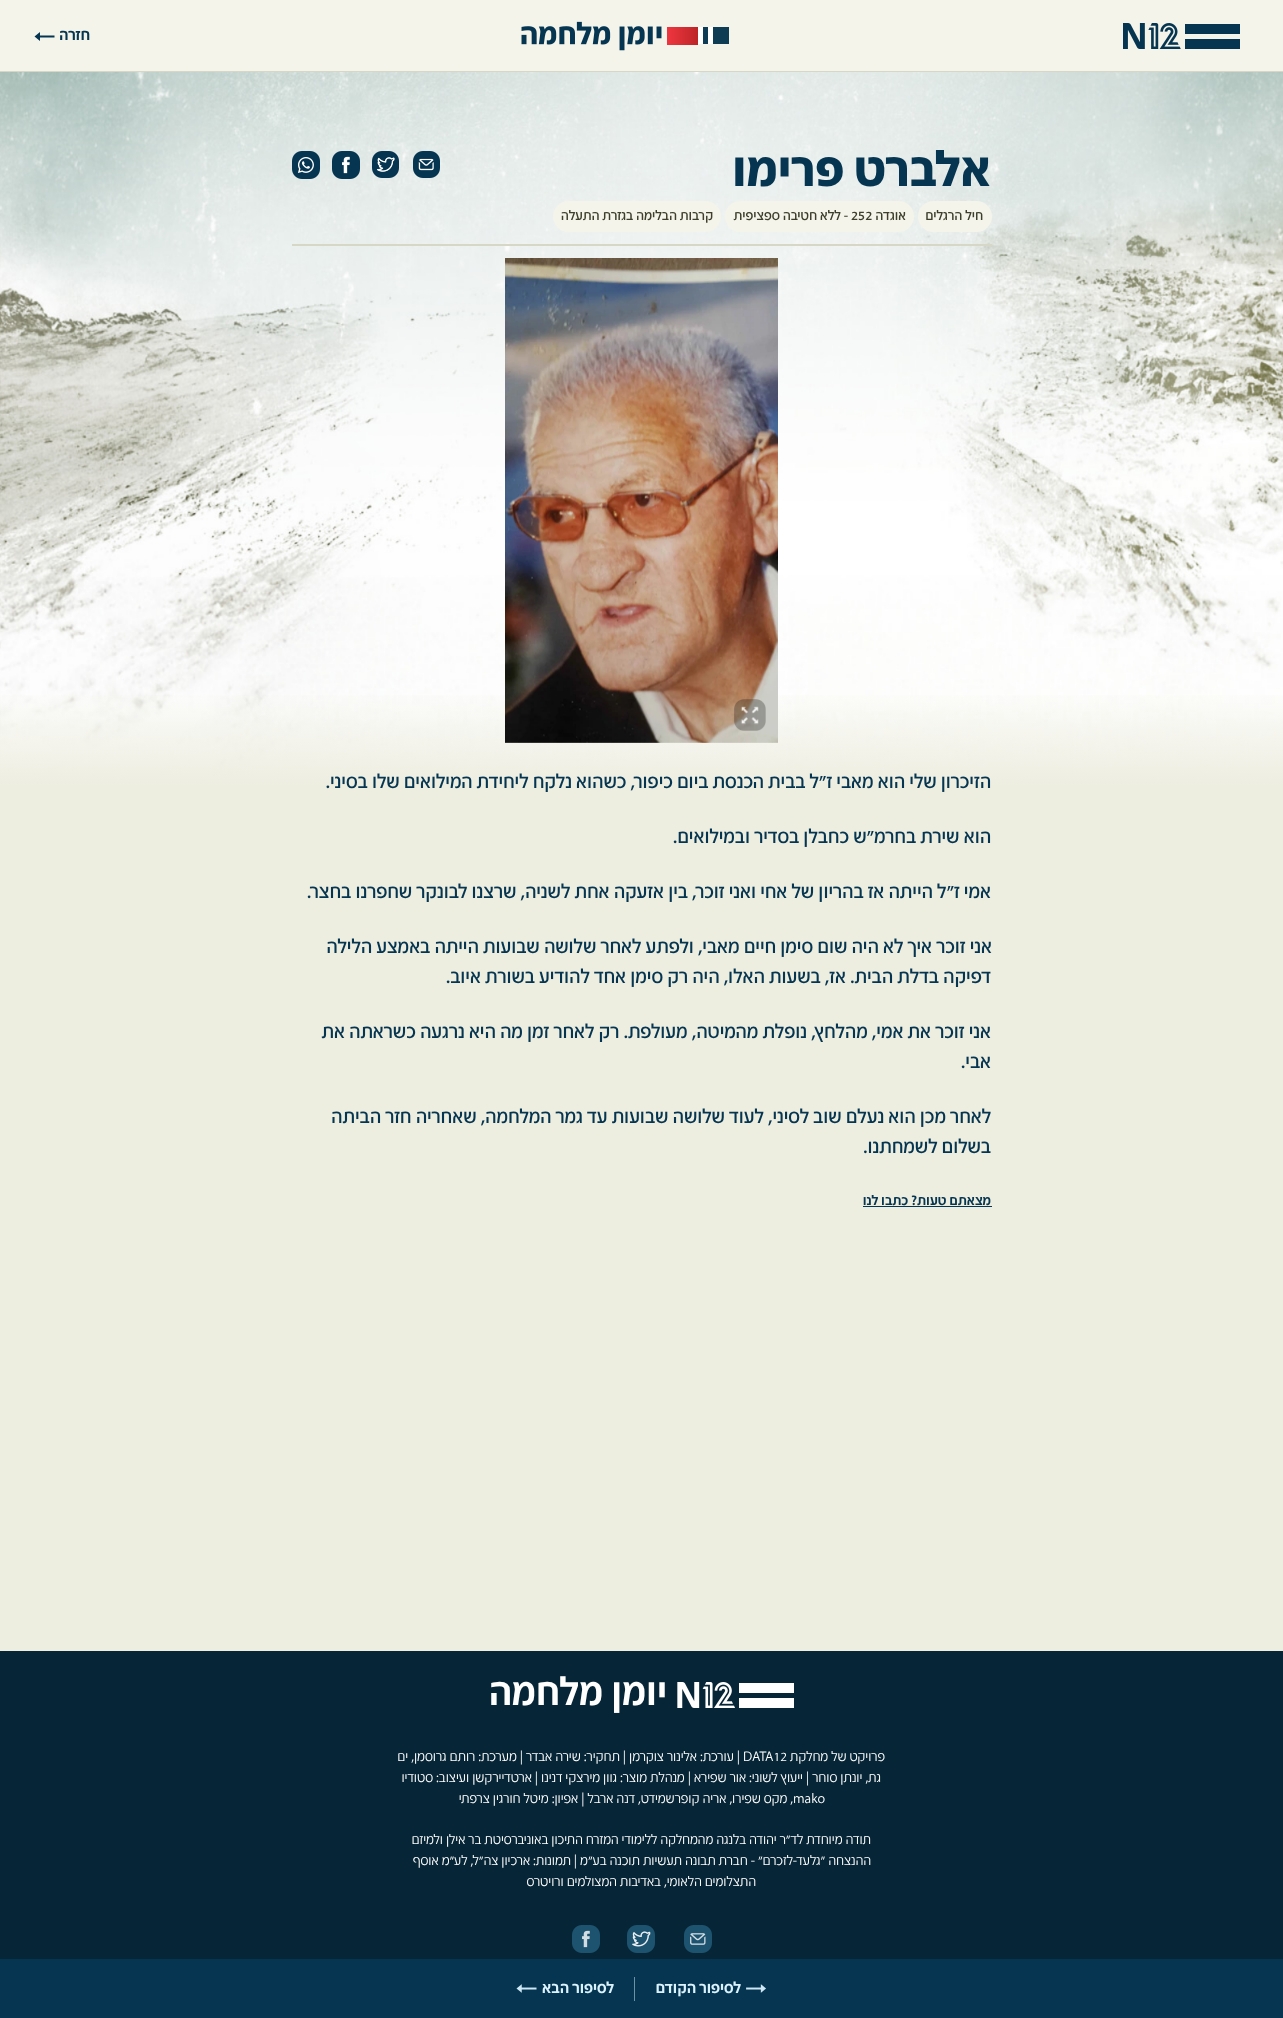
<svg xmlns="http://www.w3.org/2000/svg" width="1283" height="2018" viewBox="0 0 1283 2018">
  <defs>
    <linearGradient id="g1" gradientUnits="userSpaceOnUse" x1="642" y1="687" x2="642" y2="787"><stop offset="0" stop-color="#edede0" stop-opacity="0"/><stop offset="1" stop-color="#edede0"/></linearGradient>
  </defs>
  <rect width="100%" height="100%" fill="#edede0"/>
  <path d="M0 0h1283v71H0z" fill="#f4f4eb"/>
  <path d="M0 71h1283v1H0z" fill="#d7d7c7"/>
  <image x="1123" y="23" width="117" height="26" href="img/1.png"/>
  <image x="521" y="21" width="208" height="30" href="img/2.png"/>
  <path d="M40 32L34.5 36.5L40 41V37.5H54.5V35.5H40Z" fill="#053550" fill-rule="evenodd"/>
  <image x="0" y="72" width="1283" height="713" href="img/3.png"/>
  <path d="M0 695h1283v90H0z" fill="url(#g1)"/>
  <rect x="918" y="201" width="74" height="31" rx="15.5" fill="#f4f4eb"/>
  <rect x="725" y="201" width="189" height="31" rx="15.5" fill="#f4f4eb"/>
  <rect x="553" y="201" width="168" height="31" rx="15.5" fill="#f4f4eb"/>
  <image x="413" y="151" width="27" height="27" href="img/4.png"/>
  <image x="372" y="151" width="27" height="27" href="img/5.png"/>
  <image x="332" y="151" width="28" height="28" href="img/6.png"/>
  <image x="292" y="151" width="28" height="28" href="img/7.png"/>
  <path d="M292 244h700v2H292z" fill="#d7d7c7"/>
  <image x="505" y="258" width="273" height="485" href="img/8.png"/>
  <image x="734" y="699" width="32" height="32" href="img/9.png"/>
  <path d="M863 1206h129v1H863z" fill="#053550"/>
  <path d="M0 1651h1283v308H0z" fill="#062536"/>
  <image x="677" y="1682" width="117" height="26" href="img/10.png"/>
  <image x="684" y="1925" width="28" height="28" href="img/11.png"/>
  <image x="627" y="1925" width="28" height="28" href="img/12.png"/>
  <image x="572" y="1925" width="28" height="28" href="img/13.png"/>
  <path d="M0 1959h1283v59H0z" fill="#053550"/>
  <image x="746" y="1984" width="20" height="9" href="img/14.png"/>
  <path d="M634 1977h1v24H634z" fill="#6d91a5"/>
  <image x="516" y="1984" width="21" height="9" href="img/15.png"/>
  <text x="90" y="40" font-family="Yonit" font-size="16" font-weight="500" direction="rtl" fill="#053550">חזרה</text>
  <text x="991" y="186" font-family="Yonit" font-size="50" font-weight="bold" direction="rtl" fill="#053550">אלברט פרימו</text>
  <g font-family="Yonit" font-size="14" direction="rtl" fill="#3e3e2b">
    <text x="983" y="220">חיל הרגלים</text>
    <text x="906" y="220">אוגדה</text>
  </g>
  <text x="851" y="220" font-family="Yonit" font-size="14" fill="#3e3e2b">252</text>
  <g font-family="Yonit" font-size="14" direction="rtl" fill="#3e3e2b">
    <text x="848" y="220">- ללא חטיבה ספציפית</text>
    <text x="713" y="220">קרבות הבלימה בגזרת התעלה</text>
  </g>
  <g font-family="Yonit" font-size="20" direction="rtl" fill="#053550">
    <text x="991" y="788">הזיכרון שלי הוא מאבי ז"ל בבית הכנסת ביום כיפור, כשהוא נלקח ליחידת המילואים שלו בסיני.</text>
    <text x="991" y="843">הוא שירת בחרמ"ש כחבלן בסדיר ובמילואים.</text>
    <text x="991" y="898">אמי ז"ל הייתה אז בהריון של אחי ואני זוכר, בין אזעקה אחת לשניה, שרצנו לבונקר שחפרנו בחצר.</text>
    <text x="992" y="953">אני זוכר איך לא היה שום סימן חיים מאבי, ולפתע לאחר שלושה שבועות הייתה באמצע הלילה</text>
    <text x="991" y="983">דפיקה בדלת הבית. אז, בשעות האלו, היה רק סימן אחד להודיע בשורת איוב.</text>
    <text x="991" y="1038">אני זוכר את אמי, מהלחץ, נופלת מהמיטה, מעולפת. רק לאחר זמן מה היא נרגעה כשראתה את</text>
    <text x="991" y="1068">אבי.</text>
    <text x="991" y="1123">לאחר מכן הוא נעלם שוב לסיני, לעוד שלושה שבועות עד גמר המלחמה, שאחריה חזר הביתה</text>
    <text x="991" y="1153">בשלום לשמחתנו.</text>
  </g>
  <text x="991" y="1205" font-family="Yonit" font-size="14" font-weight="500" direction="rtl" fill="#053550">מצאתם טעות? כתבו לנו</text>
  <text x="667" y="1705" font-family="Yonit" font-size="40" font-weight="500" direction="rtl" fill="#fff">יומן מלחמה</text>
  <text x="885" y="1761" font-family="Yonit" font-size="14" font-weight="300" direction="rtl" fill="#fff">פרויקט של מחלקת</text>
  <text x="743" y="1761" font-family="Yonit" font-size="14" font-weight="300" fill="#fff">DATA12</text>
  <g font-family="Yonit" font-size="14" font-weight="300" direction="rtl" fill="#fff">
    <text x="740" y="1761">| עורכת: אלינור צוקרמן | תחקיר: שירה אבדר | מערכת: רותם גרוסמן, ים</text>
    <text x="881" y="1782">גת, יונתן סוחר | ייעוץ לשוני: אור שפירא | מנהלת מוצר: גוון מירצקי דנינו | ארטדיירקשן ועיצוב: סטודיו</text>
  </g>
  <text x="793" y="1803" font-family="Yonit" font-size="14" font-weight="300" fill="#fff">mako</text>
  <g font-family="Yonit" font-size="14" font-weight="300" direction="rtl" fill="#fff">
    <text x="793" y="1803">, מקס שפירו, אריה קופרשמידט, דנה ארבל | אפיון: מיטל חורגין צרפתי</text>
    <text x="871" y="1844">תודה מיוחדת לד"ר יהודה בלנגה מהמחלקה ללימודי המזרח התיכון באוניברסיטת בר אילן ולמיזם</text>
    <text x="871" y="1865">ההנצחה "גלעד-לזכרם" - חברת תבונה תעשיות תוכנה בע"מ | תמונות: ארכיון צה"ל, לע"מ אוסף</text>
    <text x="756" y="1886">התצלומים הלאומי, באדיבות המצולמים ורויטרס</text>
  </g>
  <g font-family="Yonit" font-size="16" font-weight="500" direction="rtl" fill="#dbf2ff">
    <text x="741" y="1993">לסיפור הקודם</text>
    <text x="614" y="1993">לסיפור הבא</text>
  </g>
</svg>
